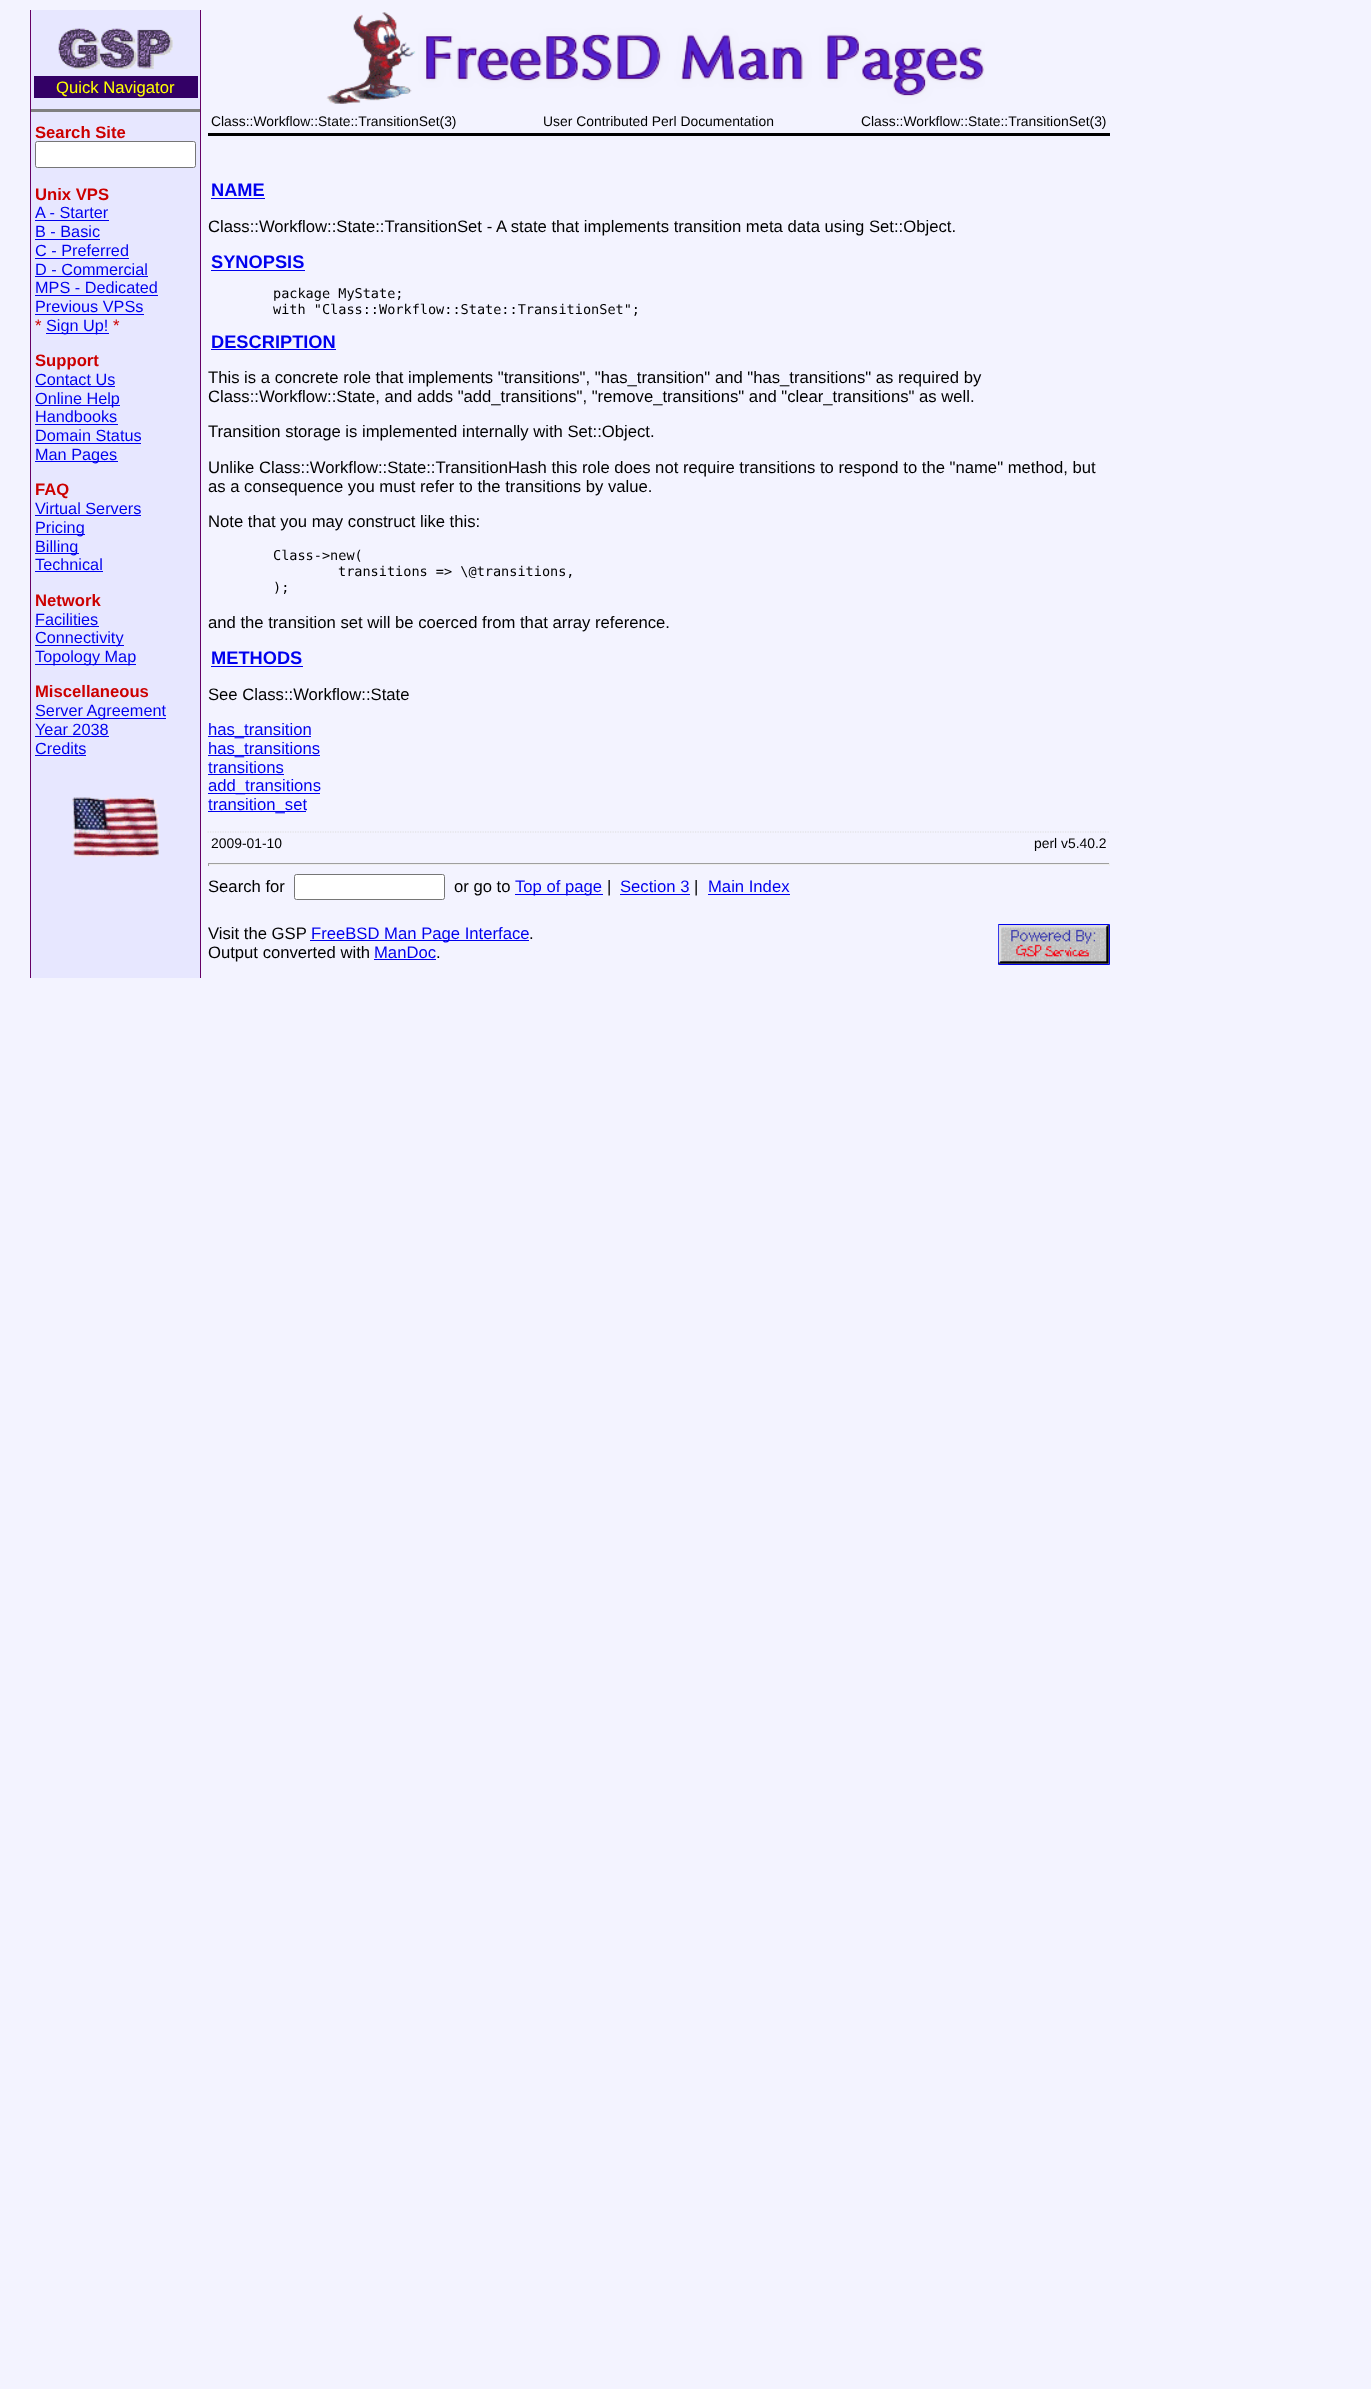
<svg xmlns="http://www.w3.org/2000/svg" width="1371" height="2389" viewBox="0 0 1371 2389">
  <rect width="100%" height="100%" fill="#f3f3ff"/>
  <path d="M30 10h1v968H30z" fill="#606"/>
  <path d="M31 10h169v968H31z" fill="#e7e7ff"/>
  <image x="58" y="28" width="116" height="42" href="img/1.png"/>
  <path d="M34 76h164v22H34z" fill="#306"/>
  <path d="M31 109h169v3H31z" fill="#808080"/>
  <rect x="35.5" y="141.5" width="160" height="26" rx="2" fill="#fff" stroke="#767676"/>
  <path d="M35 220h74v1H35z" fill="#00e"/>
  <path d="M35 239h65v1H35z" fill="#00e"/>
  <path d="M35 258h94v1H35z" fill="#00e"/>
  <path d="M35 276h113v1H35z" fill="#00e"/>
  <path d="M35 295h123v1H35z" fill="#00e"/>
  <path d="M35 314h109v1H35z" fill="#00e"/>
  <path d="M46 333h63v1H46z" fill="#00e"/>
  <path d="M35 386h80v1H35z" fill="#00e"/>
  <path d="M35 405h85v1H35z" fill="#00e"/>
  <path d="M35 424h83v1H35z" fill="#00e"/>
  <path d="M35 443h106v1H35z" fill="#00e"/>
  <path d="M35 461h83v1H35z" fill="#00e"/>
  <path d="M35 515h106v1H35z" fill="#00e"/>
  <path d="M35 534h50v1H35z" fill="#00e"/>
  <path d="M35 553h44v1H35z" fill="#00e"/>
  <path d="M35 571h68v1H35z" fill="#00e"/>
  <path d="M35 626h64v1H35z" fill="#00e"/>
  <path d="M35 645h89v1H35z" fill="#00e"/>
  <path d="M35 664h101v1H35z" fill="#00e"/>
  <path d="M35 718h131v1H35z" fill="#00e"/>
  <path d="M35 736h74v1H35z" fill="#00e"/>
  <path d="M35 755h51v1H35z" fill="#00e"/>
  <image x="72" y="797" width="87" height="61" href="img/2.png"/>
  <path d="M200 10h1v968H200z" fill="#606"/>
  <image x="326" y="12" width="659" height="92" href="img/3.png"/>
  <path d="M208 133h902v3H208z" fill="#000"/>
  <path d="M211 198h54v1H211z" fill="#00e"/>
  <path d="M211 270h94v1H211z" fill="#00e"/>
  <path d="M211 349h125v1H211z" fill="#00e"/>
  <path d="M211 666h92v1H211z" fill="#00e"/>
  <path d="M208 736h103v1H208z" fill="#00e"/>
  <path d="M208 755h112v1H208z" fill="#00e"/>
  <path d="M208 774h76v1H208z" fill="#00e"/>
  <path d="M208 793h112v1H208z" fill="#00e"/>
  <path d="M208 811h98v1H208z" fill="#00e"/>
  <path d="M207.5 832H1110" fill="none" stroke="#ddd" stroke-width="1.2" stroke-dasharray="1.25 1.25"/>
  <path d="M208 863h902v1H208z" fill="#9f9f9f"/>
  <path d="M1109 863h1v3H1109z" fill="#eee"/>
  <path d="M208 864h902v1H208z" fill="#eee"/>
  <path d="M208 863h1v3H208z" fill="#9f9f9f"/>
  <rect x="294.5" y="874.5" width="150" height="25" rx="2" fill="#fff" stroke="#767676"/>
  <path d="M515 894h88v1H515z" fill="#00e"/>
  <path d="M620 894h70v1H620z" fill="#00e"/>
  <path d="M708 894h82v1H708z" fill="#00e"/>
  <path d="M310 940h219v1H310z" fill="#00e"/>
  <path d="M998.5 924.5h111v40H998.5z" fill="none" stroke="#00e"/>
  <image x="998" y="925" width="111" height="39" href="img/4.png"/>
  <path d="M374 959h62v1H374z" fill="#00e"/>
  <text x="56" y="93" font-family="Liberation Sans" font-size="16.67" fill="#ff0">Quick Navigator</text>
  <g font-family="Liberation Sans" font-size="16.67" font-weight="bold" fill="#c00">
    <text x="35" y="138">Search Site</text>
    <text x="35" y="200">Unix VPS</text>
  </g>
  <g font-family="Liberation Sans" font-size="16.25" fill="#00e">
    <text x="35" y="218">A - Starter</text>
    <text x="35" y="237">B - Basic</text>
    <text x="35" y="256">C - Preferred</text>
    <text x="35" y="275">D - Commercial</text>
    <text x="35" y="293">MPS - Dedicated</text>
    <text x="35" y="312">Previous VPSs</text>
  </g>
  <text x="35" y="331" font-family="Liberation Sans" font-size="16.67" fill="#c00">*</text>
  <text x="46" y="331" font-family="Liberation Sans" font-size="16.25" fill="#00e">Sign Up!</text>
  <text x="113" y="331" font-family="Liberation Sans" font-size="16.67" fill="#c00">*</text>
  <text x="35" y="366" font-family="Liberation Sans" font-size="16.67" font-weight="bold" fill="#c00">Support</text>
  <g font-family="Liberation Sans" font-size="16.25" fill="#00e">
    <text x="35" y="385">Contact Us</text>
    <text x="35" y="404">Online Help</text>
    <text x="35" y="422">Handbooks</text>
    <text x="35" y="441">Domain Status</text>
    <text x="35" y="460">Man Pages</text>
  </g>
  <text x="35" y="495" font-family="Liberation Sans" font-size="16.67" font-weight="bold" fill="#c00">FAQ</text>
  <g font-family="Liberation Sans" font-size="16.25" fill="#00e">
    <text x="35" y="514">Virtual Servers</text>
    <text x="35" y="533">Pricing</text>
    <text x="35" y="552">Billing</text>
    <text x="35" y="570">Technical</text>
  </g>
  <text x="35" y="606" font-family="Liberation Sans" font-size="16.67" font-weight="bold" fill="#c00">Network</text>
  <g font-family="Liberation Sans" font-size="16.25" fill="#00e">
    <text x="35" y="625">Facilities</text>
    <text x="35" y="643">Connectivity</text>
    <text x="35" y="662">Topology Map</text>
  </g>
  <text x="35" y="697" font-family="Liberation Sans" font-size="16.67" font-weight="bold" fill="#c00">Miscellaneous</text>
  <g font-family="Liberation Sans" font-size="16.25" fill="#00e">
    <text x="35" y="716">Server Agreement</text>
    <text x="35" y="735">Year 2038</text>
    <text x="35" y="754">Credits</text>
  </g>
  <g font-family="Liberation Sans" font-size="13.9" fill="#000">
    <text x="211" y="126">Class::Workflow::State::TransitionSet(3)</text>
    <text x="543" y="126">User Contributed Perl Documentation</text>
    <text x="861" y="126">Class::Workflow::State::TransitionSet(3)</text>
  </g>
  <text x="211" y="196" font-family="Liberation Sans" font-size="18.25" font-weight="bold" fill="#00e">NAME</text>
  <text x="208" y="232" font-family="Liberation Sans" font-size="16.67" fill="#000">Class::Workflow::State::TransitionSet - A state that implements transition meta data using Set::Object.</text>
  <text x="211" y="268" font-family="Liberation Sans" font-size="18.25" font-weight="bold" fill="#00e">SYNOPSIS</text>
  <g font-family="DejaVu Sans Mono" font-size="13.55" fill="#000">
    <text x="273" y="298">package MyState;</text>
    <text x="273" y="314">with "Class::Workflow::State::TransitionSet";</text>
  </g>
  <text x="211" y="348" font-family="Liberation Sans" font-size="18.25" font-weight="bold" fill="#00e">DESCRIPTION</text>
  <g font-family="Liberation Sans" font-size="16.67" fill="#000">
    <text x="208" y="383">This is a concrete role that implements "transitions", "has_transition" and "has_transitions" as required by</text>
    <text x="208" y="402">Class::Workflow::State, and adds "add_transitions", "remove_transitions" and "clear_transitions" as well.</text>
    <text x="208" y="437">Transition storage is implemented internally with Set::Object.</text>
    <text x="208" y="473">Unlike Class::Workflow::State::TransitionHash this role does not require transitions to respond to the "name" method, but</text>
    <text x="208" y="492">as a consequence you must refer to the transitions by value.</text>
    <text x="208" y="527">Note that you may construct like this:</text>
  </g>
  <g font-family="DejaVu Sans Mono" font-size="13.55" fill="#000">
    <text x="273" y="560">Class-&gt;new(</text>
    <text x="338" y="576">transitions =&gt; \@transitions,</text>
    <text x="273" y="592">);</text>
  </g>
  <text x="208" y="628" font-family="Liberation Sans" font-size="16.67" fill="#000">and the transition set will be coerced from that array reference.</text>
  <text x="211" y="664" font-family="Liberation Sans" font-size="18.25" font-weight="bold" fill="#00e">METHODS</text>
  <text x="208" y="700" font-family="Liberation Sans" font-size="16.67" fill="#000">See Class::Workflow::State</text>
  <g font-family="Liberation Sans" font-size="16.67" fill="#00e">
    <text x="208" y="735">has_transition</text>
    <text x="208" y="754">has_transitions</text>
    <text x="208" y="773">transitions</text>
    <text x="208" y="791">add_transitions</text>
    <text x="208" y="810">transition_set</text>
  </g>
  <g font-family="Liberation Sans" font-size="13.9" fill="#000">
    <text x="211" y="848">2009-01-10</text>
    <text x="1034" y="848">perl v5.40.2</text>
  </g>
  <g font-family="Liberation Sans" font-size="16.67" fill="#000">
    <text x="208" y="892">Search for</text>
    <text x="454" y="892">or go to</text>
  </g>
  <text x="515" y="892" font-family="Liberation Sans" font-size="16.67" fill="#00e">Top of page</text>
  <text x="607" y="892" font-family="Liberation Sans" font-size="16.67" fill="#000">|</text>
  <text x="620" y="892" font-family="Liberation Sans" font-size="16.67" fill="#00e">Section 3</text>
  <text x="694" y="892" font-family="Liberation Sans" font-size="16.67" fill="#000">|</text>
  <text x="708" y="892" font-family="Liberation Sans" font-size="16.67" fill="#00e">Main Index</text>
  <text x="208" y="939" font-family="Liberation Sans" font-size="16.67" fill="#000">Visit the GSP</text>
  <text x="311" y="939" font-family="Liberation Sans" font-size="16.67" fill="#00e">FreeBSD Man Page Interface</text>
  <g font-family="Liberation Sans" font-size="16.67" fill="#000">
    <text x="529" y="939">.</text>
    <text x="208" y="958">Output converted with</text>
  </g>
  <text x="374" y="958" font-family="Liberation Sans" font-size="16.67" fill="#00e">ManDoc</text>
  <text x="436" y="958" font-family="Liberation Sans" font-size="16.67" fill="#000">.</text>
</svg>
